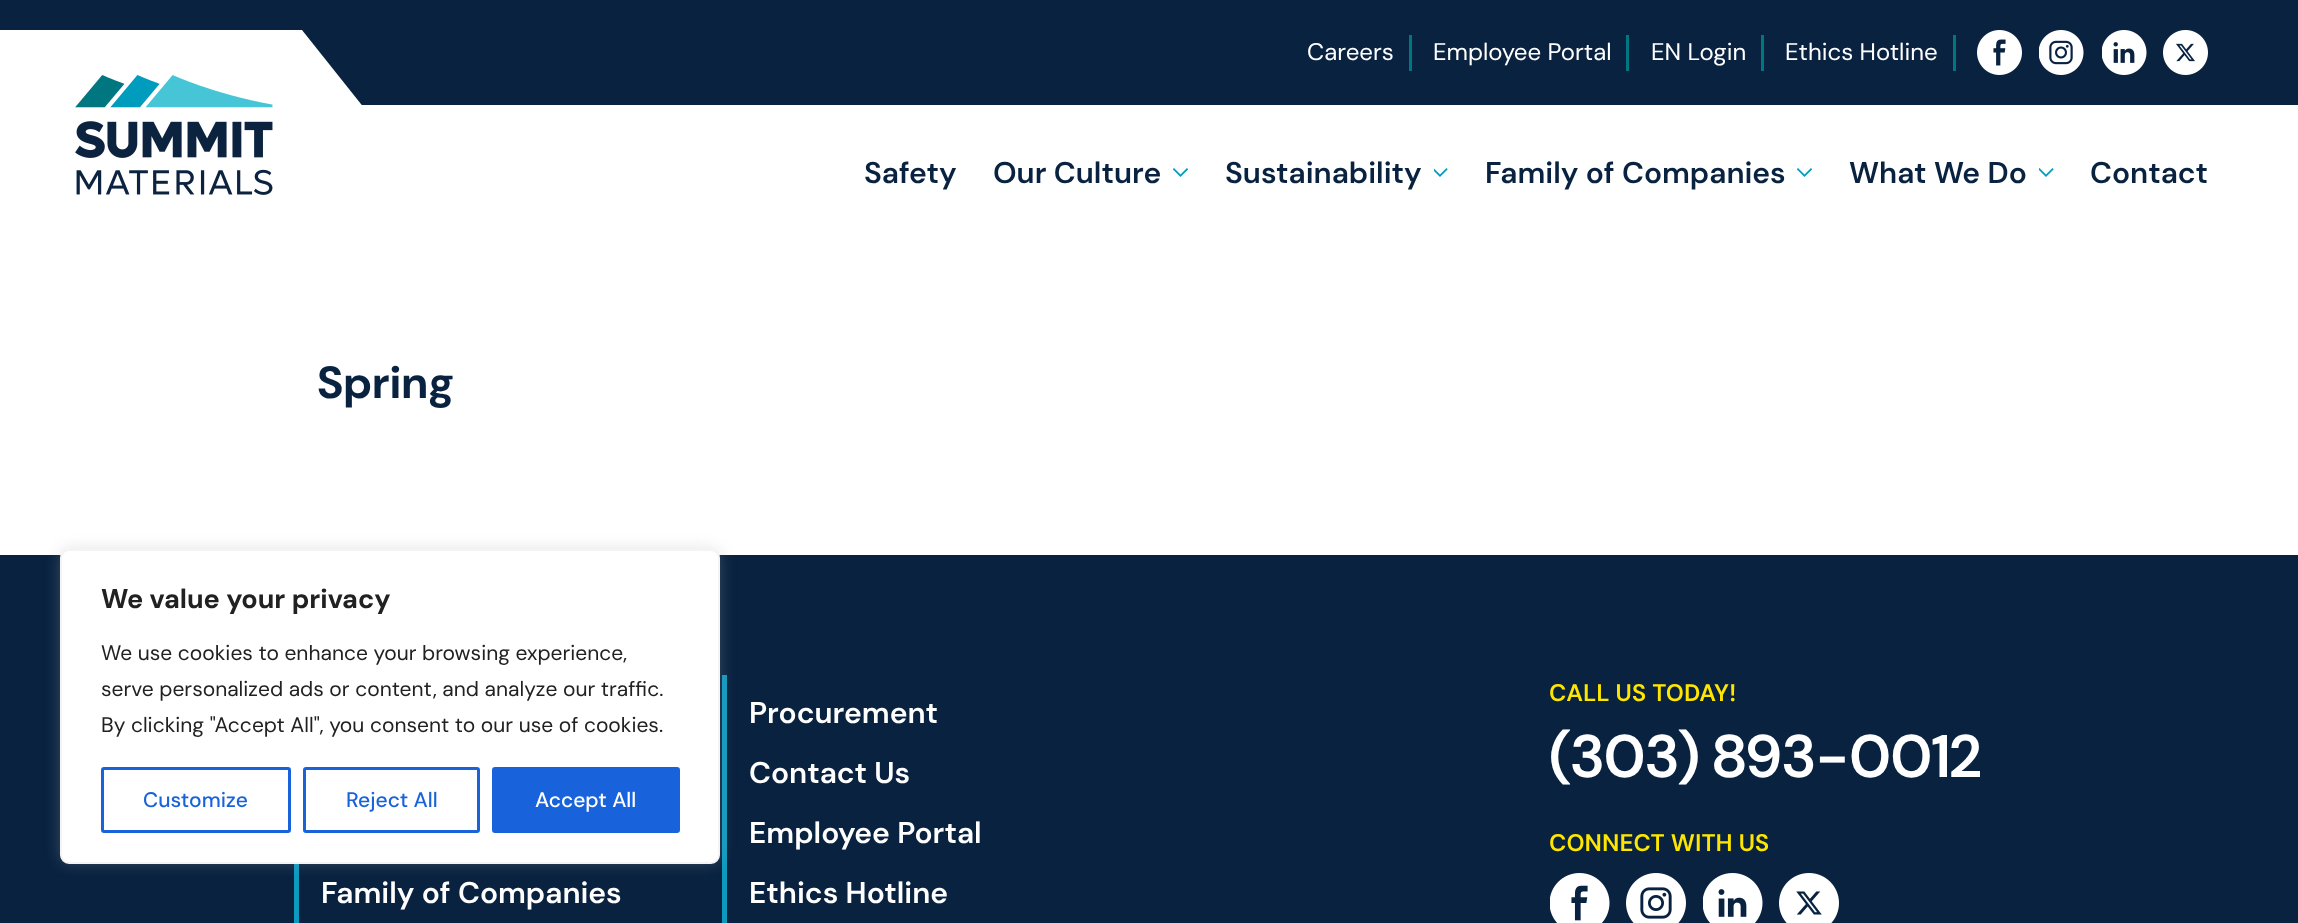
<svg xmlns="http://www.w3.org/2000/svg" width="2298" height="923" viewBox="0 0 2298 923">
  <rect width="100%" height="100%" fill="#fff"/>
  <path d="M0 0h2298v105H0z" fill="#082240"/>
  <path d="M1409 35h3v36H1409z" fill="#007681"/>
  <path d="M1626 35h3v36H1626z" fill="#007681"/>
  <path d="M1761 35h3v36H1761z" fill="#007681"/>
  <path d="M1953 35h3v36H1953z" fill="#007681"/>
  <image x="1977" y="30" width="45" height="45" href="img/1.png"/>
  <image x="2039" y="30" width="45" height="45" href="img/2.png"/>
  <image x="2102" y="30" width="45" height="45" href="img/3.png"/>
  <image x="2163" y="30" width="45" height="45" href="img/4.png"/>
  <path d="M0 30V240H392V143L302 30Z" fill="#fff"/>
  <image x="75" y="75" width="198" height="120" href="img/5.png"/>
  <image x="1173" y="168" width="15" height="9" href="img/6.png"/>
  <image x="1434" y="168" width="14" height="9" href="img/7.png"/>
  <image x="1797" y="168" width="15" height="9" href="img/6.png"/>
  <image x="2039" y="168" width="15" height="9" href="img/8.png"/>
  <path d="M0 555h2298v368H0z" fill="#082240"/>
  <path d="M294 864h5v59H294z" fill="#0d9abf"/>
  <path d="M722 675h5v248H722z" fill="#0d9abf"/>
  <rect x="60" y="548" width="660" height="315" rx="9" fill="#acabab4d" filter="blur(7.5px)"/>
  <rect x="61" y="550" width="658" height="313" rx="8" fill="#fff" stroke="#f4f4f4" stroke-width="2"/>
  <rect x="102.5" y="768.5" width="187" height="63" rx="1.5" fill="none" stroke="#1863dc" stroke-width="3"/>
  <rect x="304.5" y="768.5" width="174" height="63" rx="1.5" fill="none" stroke="#1863dc" stroke-width="3"/>
  <rect x="493.5" y="768.5" width="185" height="63" rx="1.5" fill="#1863dc" stroke="#1863dc" stroke-width="3"/>
  <image x="1550" y="873" width="60" height="50" href="img/9.png"/>
  <image x="1626" y="873" width="60" height="50" href="img/10.png"/>
  <image x="1703" y="873" width="60" height="50" href="img/11.png"/>
  <image x="1779" y="873" width="60" height="50" href="img/12.png"/>
  <g font-family="DM Sans" font-size="24" fill="#fff">
    <text x="1307" y="60">Careers</text>
    <text x="1433" y="60">Employee Portal</text>
    <text x="1651" y="60">EN Login</text>
    <text x="1785" y="60">Ethics Hotline</text>
  </g>
  <g font-family="DM Sans" font-size="30" font-weight="600" fill="#082240">
    <text x="864" y="183">Safety</text>
    <text x="993" y="183">Our Culture</text>
    <text x="1225" y="183">Sustainability</text>
    <text x="1485" y="183">Family of Companies</text>
    <text x="1849" y="183">What We Do</text>
    <text x="2090" y="183">Contact</text>
  </g>
  <text x="317" y="398" font-family="DM Sans" font-size="45" font-weight="bold" fill="#082240">Spring</text>
  <text x="101" y="608" font-family="'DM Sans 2'" font-size="27" font-weight="bold" fill="#212121">We value your privacy</text>
  <g font-family="'DM Sans 2'" font-size="21" fill="#212121">
    <text x="101" y="660">We use cookies to enhance your browsing experience,</text>
    <text x="101" y="696">serve personalized ads or content, and analyze our traffic.</text>
    <text x="101" y="732">By clicking "Accept All", you consent to our use of cookies.</text>
  </g>
  <g font-family="DM Sans" font-size="21" font-weight="500" fill="#1863dc">
    <text x="143" y="807">Customize</text>
    <text x="346" y="807">Reject All</text>
  </g>
  <text x="535" y="807" font-family="DM Sans" font-size="21" font-weight="500" fill="#fff">Accept All</text>
  <g font-family="DM Sans" font-size="30" font-weight="600" fill="#fff">
    <text x="321" y="903">Family of Companies</text>
    <text x="749" y="723">Procurement</text>
    <text x="749" y="783">Contact Us</text>
    <text x="749" y="843">Employee Portal</text>
    <text x="749" y="903">Ethics Hotline</text>
  </g>
  <text x="1549" y="701" font-family="'DM Sans 2'" font-size="24" font-weight="600" fill="#ffe600">CALL US TODAY!</text>
  <text x="1549" y="777" font-family="'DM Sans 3'" font-size="60" font-weight="600" fill="#fff">(303) 893-0012</text>
  <text x="1549" y="851" font-family="'DM Sans 2'" font-size="24" font-weight="600" fill="#ffe600">CONNECT WITH US</text>
</svg>
